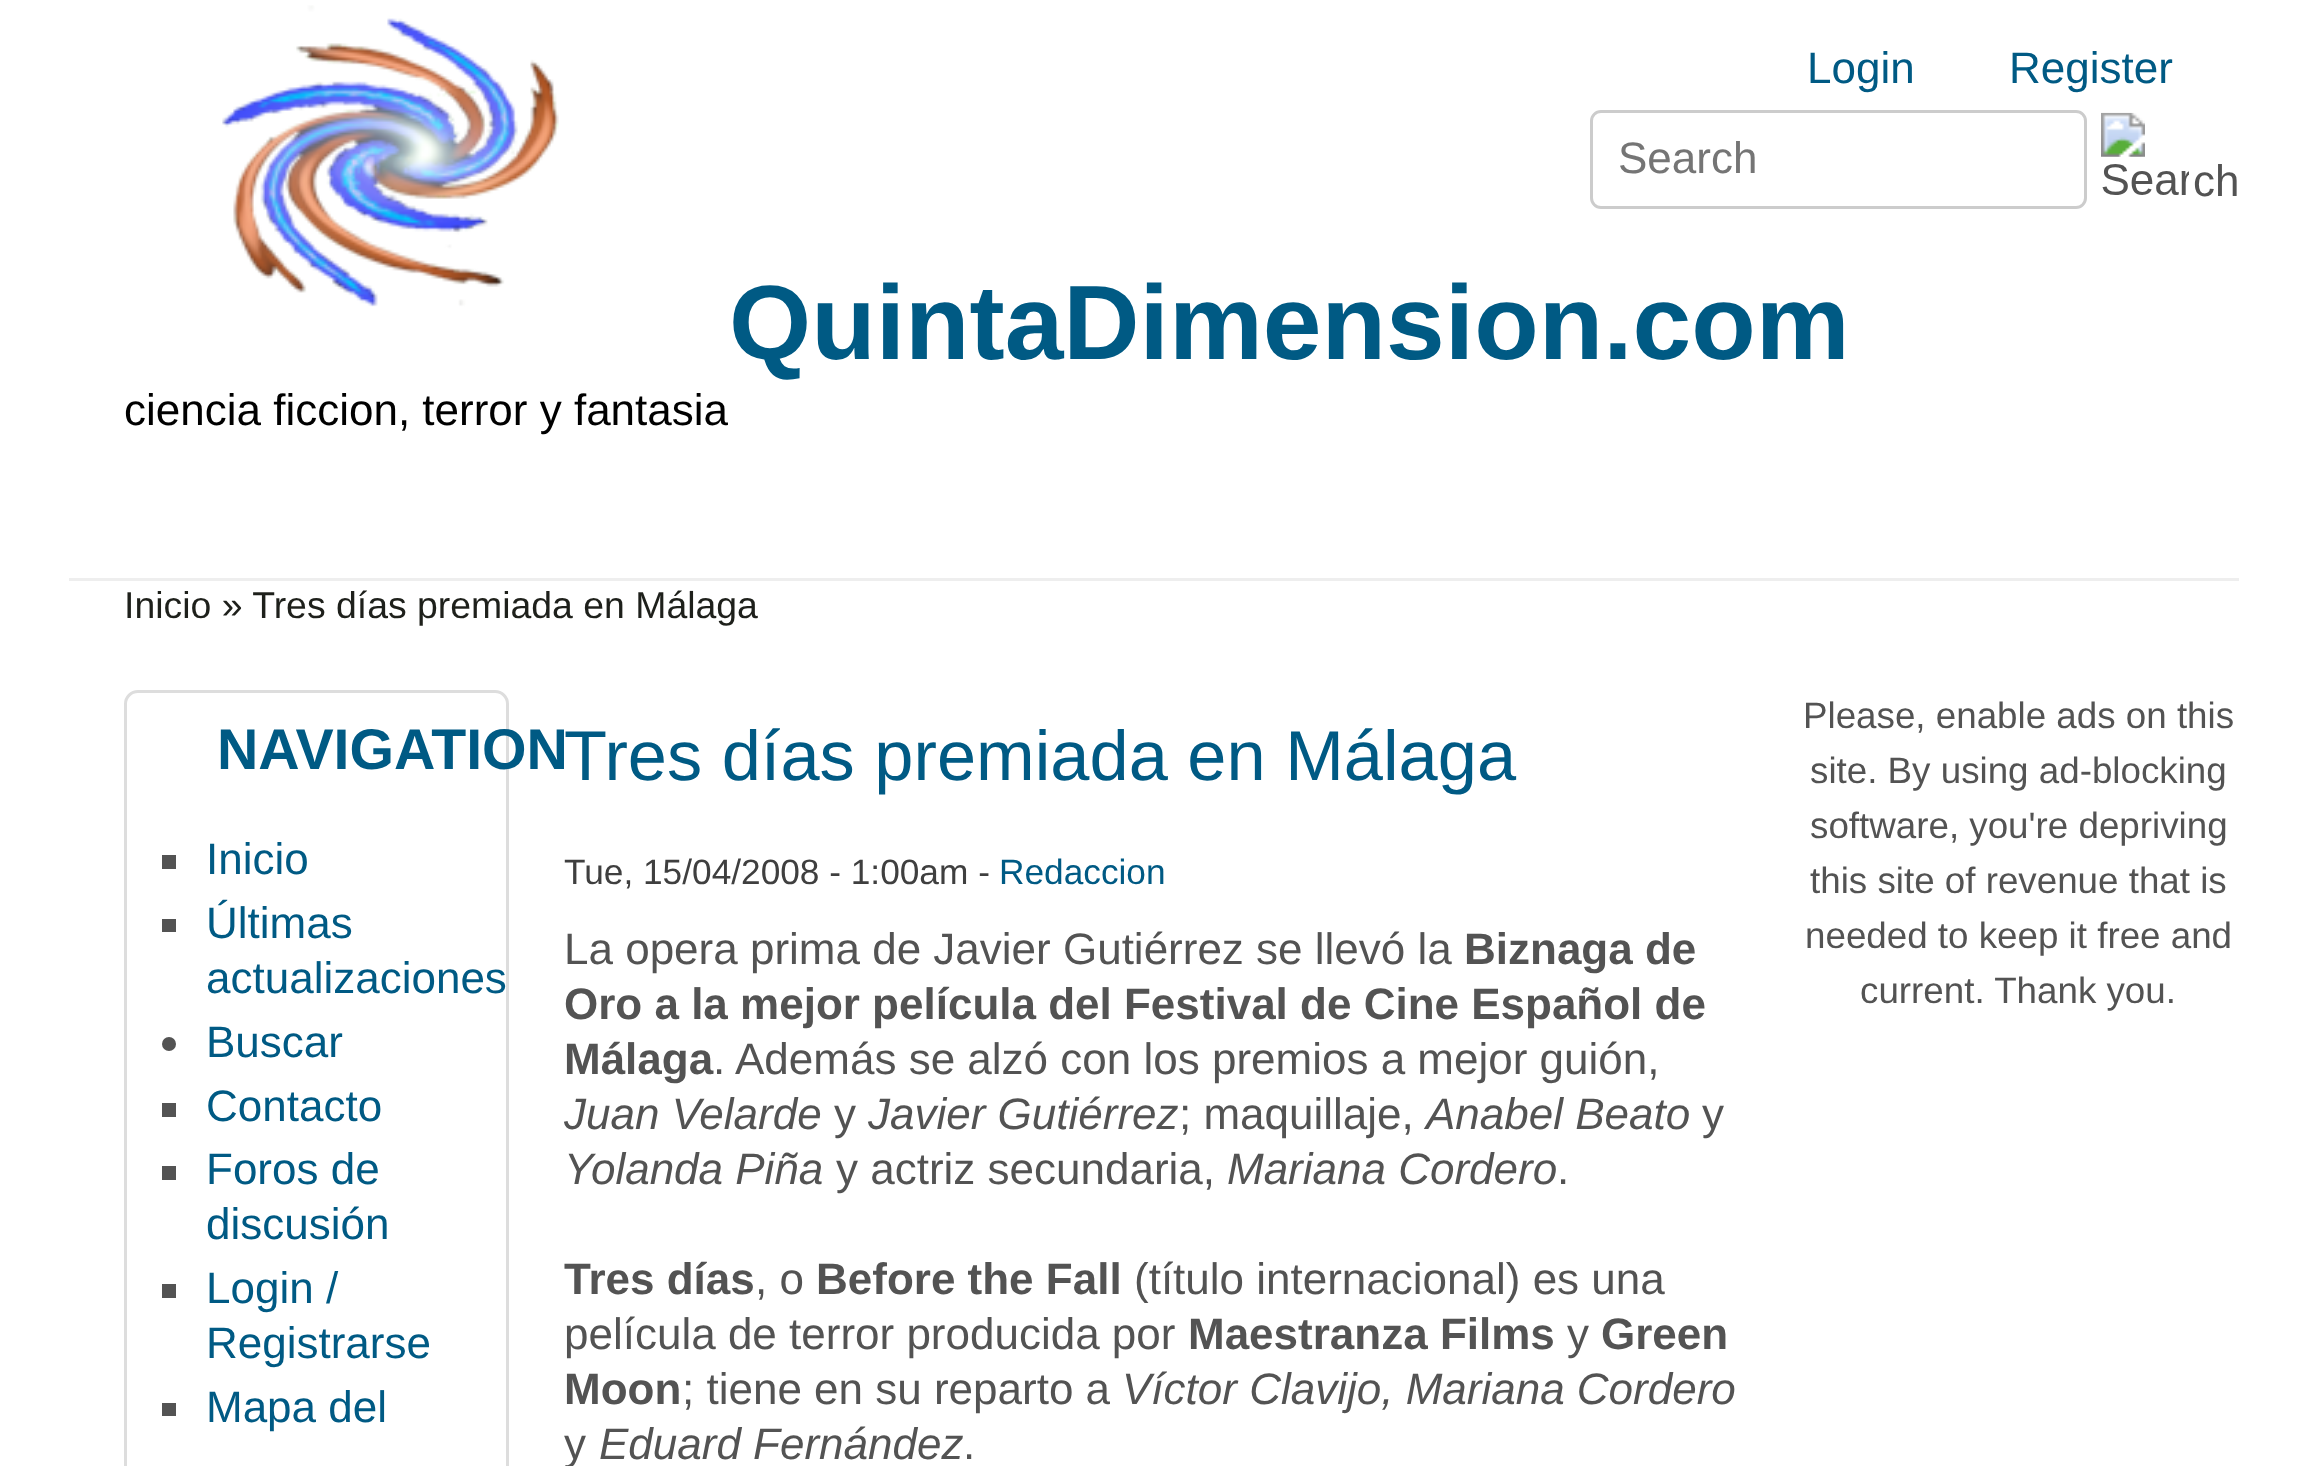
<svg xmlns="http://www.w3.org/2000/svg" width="2306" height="1466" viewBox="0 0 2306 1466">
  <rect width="100%" height="100%" fill="#fff"/>
  <path d="M69 578h2170v3H69z" fill="#eee"/>
  <image x="222" y="5" width="337" height="302" href="img/1.png"/>
  <rect x="1591.5" y="111.5" width="494" height="96" rx="9.5" fill="none" stroke="#ccc" stroke-width="3"/>
  <image x="2101" y="112" width="88" height="83" href="img/2.png"/>
  <rect x="125.5" y="691.5" width="382" height="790" rx="12.5" fill="none" stroke="#ddd" stroke-width="3"/>
  <path d="M162 855h14v14H162z" fill="#535353"/>
  <path d="M162 919h14v13H162z" fill="#535353"/>
  <circle cx="169" cy="1044" r="7" fill="#535353"/>
  <path d="M162 1103h14v14H162z" fill="#535353"/>
  <path d="M162 1166h14v14H162z" fill="#535353"/>
  <path d="M162 1284h14v14H162z" fill="#535353"/>
  <path d="M162 1403h14v13H162z" fill="#535353"/>
  <g font-family="Liberation Sans" font-size="44" fill="#005a84">
    <text x="1807" y="83">Login</text>
    <text x="2009" y="83">Register</text>
  </g>
  <text x="1618" y="173" font-family="Liberation Sans" font-size="44" fill="#757575">Search</text>
  <text x="2193" y="196" font-family="Liberation Sans" font-size="44" fill="#535353">ch</text>
  <text x="729" y="359" font-family="Liberation Sans" font-size="105.6" font-weight="bold" fill="#005a84">QuintaDimension.com</text>
  <text x="124" y="425" font-family="Liberation Sans" font-size="44" fill="#000">ciencia ficcion, terror y fantasia</text>
  <text x="124" y="618" font-family="Liberation Sans" font-size="37.4" fill="#1e201b">Inicio » Tres días premiada en Málaga</text>
  <text x="217" y="769" font-family="Liberation Sans" font-size="57.25" font-weight="bold" fill="#005a84">NAVIGATION</text>
  <g font-family="Liberation Sans" font-size="44" fill="#005a84">
    <text x="206" y="874">Inicio</text>
    <text x="206" y="938">Últimas</text>
    <text x="206" y="993">actualizaciones</text>
    <text x="206" y="1057">Buscar</text>
    <text x="206" y="1121">Contacto</text>
    <text x="206" y="1184">Foros de</text>
    <text x="206" y="1239">discusión</text>
    <text x="206" y="1303">Login /</text>
    <text x="206" y="1358">Registrarse</text>
    <text x="206" y="1422">Mapa del</text>
  </g>
  <text x="564" y="780" font-family="Liberation Sans" font-size="70.4" fill="#005a84">Tres días premiada en Málaga</text>
  <text x="564" y="884" font-family="Liberation Sans" font-size="35.25" fill="#3f3f3f">Tue, 15/04/2008 - 1:00am -</text>
  <text x="999" y="884" font-family="Liberation Sans" font-size="35.25" fill="#005a84">Redaccion</text>
  <text x="564" y="964" font-family="Liberation Sans" font-size="44" fill="#535353">La opera prima de Javier Gutiérrez se llevó la</text>
  <g font-family="Liberation Sans" font-size="44" font-weight="bold" fill="#535353">
    <text x="1464" y="964">Biznaga de</text>
    <text x="564" y="1019">Oro a la mejor película del Festival de Cine Español de</text>
    <text x="564" y="1074">Málaga</text>
  </g>
  <text x="713" y="1074" font-family="Liberation Sans" font-size="44" fill="#535353">. Además se alzó con los premios a mejor guión,</text>
  <text x="564" y="1129" font-family="Liberation Sans" font-size="44" font-style="italic" fill="#535353">Juan Velarde</text>
  <text x="834" y="1129" font-family="Liberation Sans" font-size="44" fill="#535353">y</text>
  <text x="868" y="1129" font-family="Liberation Sans" font-size="44" font-style="italic" fill="#535353">Javier Gutiérrez</text>
  <text x="1179" y="1129" font-family="Liberation Sans" font-size="44" fill="#535353">; maquillaje,</text>
  <text x="1426" y="1129" font-family="Liberation Sans" font-size="44" font-style="italic" fill="#535353">Anabel Beato</text>
  <text x="1702" y="1129" font-family="Liberation Sans" font-size="44" fill="#535353">y</text>
  <text x="564" y="1184" font-family="Liberation Sans" font-size="44" font-style="italic" fill="#535353">Yolanda Piña</text>
  <text x="836" y="1184" font-family="Liberation Sans" font-size="44" fill="#535353">y actriz secundaria,</text>
  <text x="1227" y="1184" font-family="Liberation Sans" font-size="44" font-style="italic" fill="#535353">Mariana Cordero</text>
  <text x="1557" y="1184" font-family="Liberation Sans" font-size="44" fill="#535353">.</text>
  <text x="564" y="1294" font-family="Liberation Sans" font-size="44" font-weight="bold" fill="#535353">Tres días</text>
  <text x="755" y="1294" font-family="Liberation Sans" font-size="44" fill="#535353">, o</text>
  <text x="816" y="1294" font-family="Liberation Sans" font-size="44" font-weight="bold" fill="#535353">Before the Fall</text>
  <g font-family="Liberation Sans" font-size="44" fill="#535353">
    <text x="1134" y="1294">(título internacional) es una</text>
    <text x="564" y="1349">película de terror producida por</text>
  </g>
  <text x="1188" y="1349" font-family="Liberation Sans" font-size="44" font-weight="bold" fill="#535353">Maestranza Films</text>
  <text x="1567" y="1349" font-family="Liberation Sans" font-size="44" fill="#535353">y</text>
  <g font-family="Liberation Sans" font-size="44" font-weight="bold" fill="#535353">
    <text x="1601" y="1349">Green</text>
    <text x="564" y="1404">Moon</text>
  </g>
  <text x="682" y="1404" font-family="Liberation Sans" font-size="44" fill="#535353">; tiene en su reparto a</text>
  <text x="1122" y="1404" font-family="Liberation Sans" font-size="44" font-style="italic" fill="#535353">Víctor Clavijo, Mariana Cordero</text>
  <text x="564" y="1459" font-family="Liberation Sans" font-size="44" fill="#535353">y</text>
  <text x="599" y="1459" font-family="Liberation Sans" font-size="44" font-style="italic" fill="#535353">Eduard Fernández</text>
  <text x="963" y="1459" font-family="Liberation Sans" font-size="44" fill="#535353">.</text>
  <g font-family="Liberation Sans" font-size="36.75" fill="#535353">
    <text x="1803" y="728">Please, enable ads on this</text>
    <text x="1810" y="783">site. By using ad-blocking</text>
    <text x="1810" y="838">software, you're depriving</text>
    <text x="1810" y="893">this site of revenue that is</text>
    <text x="1805" y="948">needed to keep it free and</text>
    <text x="1860" y="1003">current. Thank you.</text>
  </g>
</svg>
